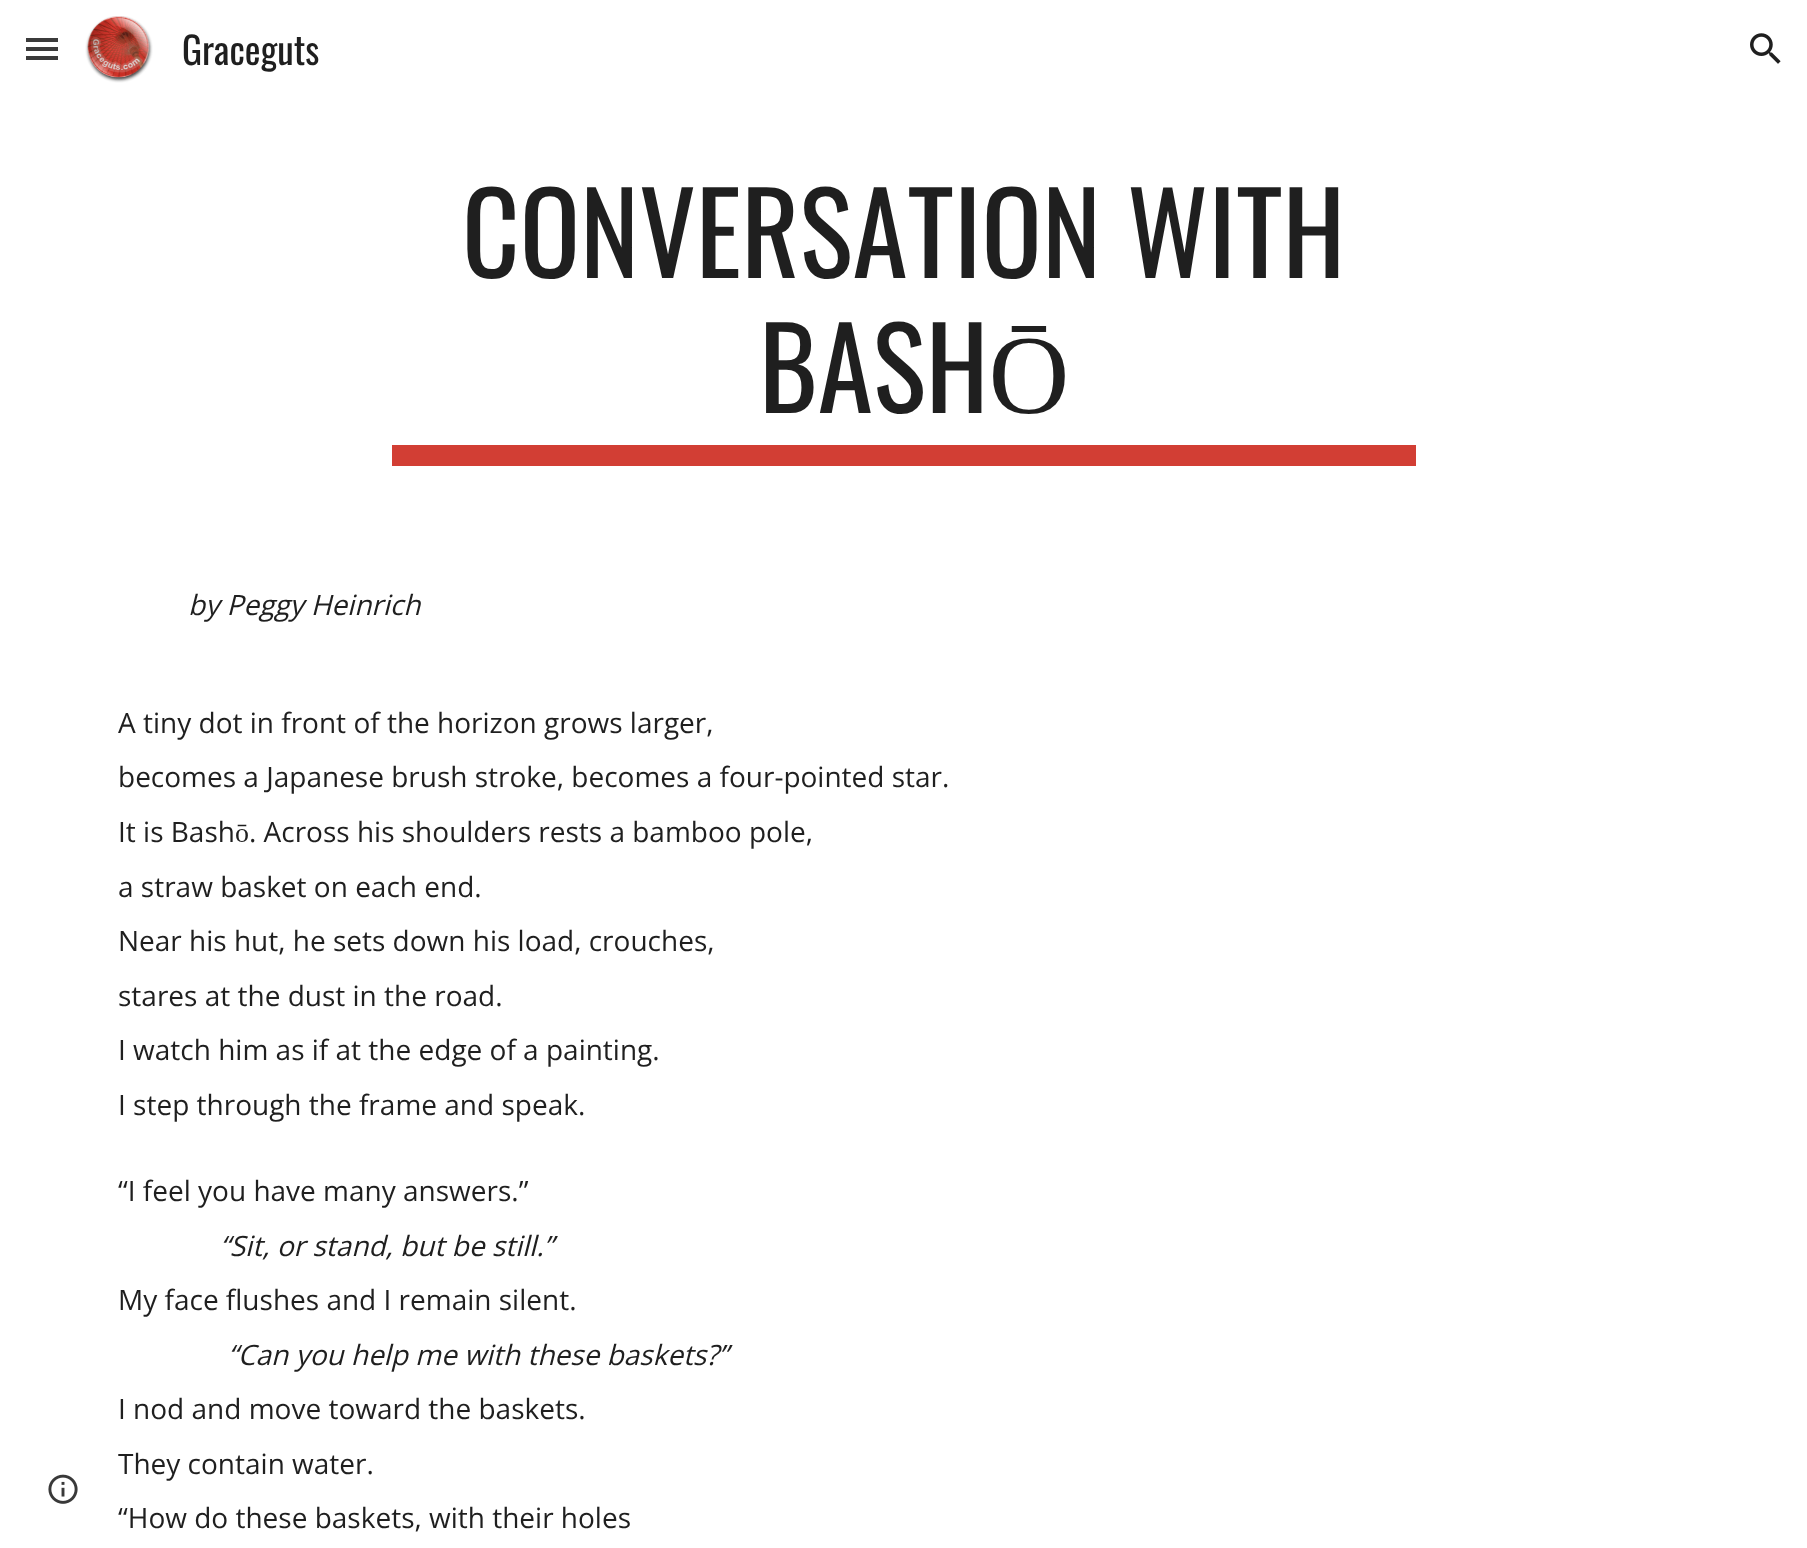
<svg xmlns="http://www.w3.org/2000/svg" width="1807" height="1548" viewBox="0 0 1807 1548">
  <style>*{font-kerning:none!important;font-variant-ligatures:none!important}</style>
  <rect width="100%" height="100%" fill="#fff"/>
  <path d="M26 38h32v4H26z" fill="#3b3b3b"/>
  <path d="M26 47h32v4H26z" fill="#3b3b3b"/>
  <path d="M26 56h32v4H26z" fill="#3b3b3b"/>
  <image x="85" y="16" width="68" height="67" href="img/1.png"/>
  <image x="1750" y="33" width="31" height="31" href="img/2.png"/>
  <image x="48" y="1474" width="30" height="30" href="img/3.png"/>
  <path d="M392 445h1024v21H392z" fill="#d23e34"/>
  <text x="182" y="65" font-family="Oswald" font-size="37.5" fill="#1f1f1f">Graceguts</text>
  <g font-family="Oswald" font-size="112" fill="#1f1f1f">
    <text x="462" y="278">CONVERSATION WITH</text>
    <text x="759" y="413">BASHŌ</text>
  </g>
  <text x="188" y="615" font-family="Open Sans" font-size="28" font-style="italic" fill="#1f1f1f">by Peggy Heinrich</text>
  <g font-family="Open Sans" font-size="28" fill="#1f1f1f">
    <text x="118" y="733">A tiny dot in front of the horizon grows larger,</text>
    <text x="118" y="787">becomes a Japanese brush stroke, becomes a four-pointed star.</text>
    <text x="118" y="842">It is Bashō. Across his shoulders rests a bamboo pole,</text>
    <text x="118" y="897">a straw basket on each end.</text>
    <text x="118" y="951">Near his hut, he sets down his load, crouches,</text>
    <text x="118" y="1006">stares at the dust in the road.</text>
    <text x="118" y="1060">I watch him as if at the edge of a painting.</text>
    <text x="118" y="1115">I step through the frame and speak.</text>
    <text x="118" y="1201">“I feel you have many answers.”</text>
  </g>
  <text x="220" y="1256" font-family="Open Sans" font-size="28" font-style="italic" fill="#1f1f1f">“Sit, or stand, but be still.”</text>
  <text x="118" y="1310" font-family="Open Sans" font-size="28" fill="#1f1f1f">My face flushes and I remain silent.</text>
  <text x="228" y="1365" font-family="Open Sans" font-size="28" font-style="italic" fill="#1f1f1f">“Can you help me with these baskets?”</text>
  <g font-family="Open Sans" font-size="28" fill="#1f1f1f">
    <text x="118" y="1419">I nod and move toward the baskets.</text>
    <text x="118" y="1474">They contain water.</text>
    <text x="118" y="1528">“How do these baskets, with their holes</text>
  </g>
</svg>
